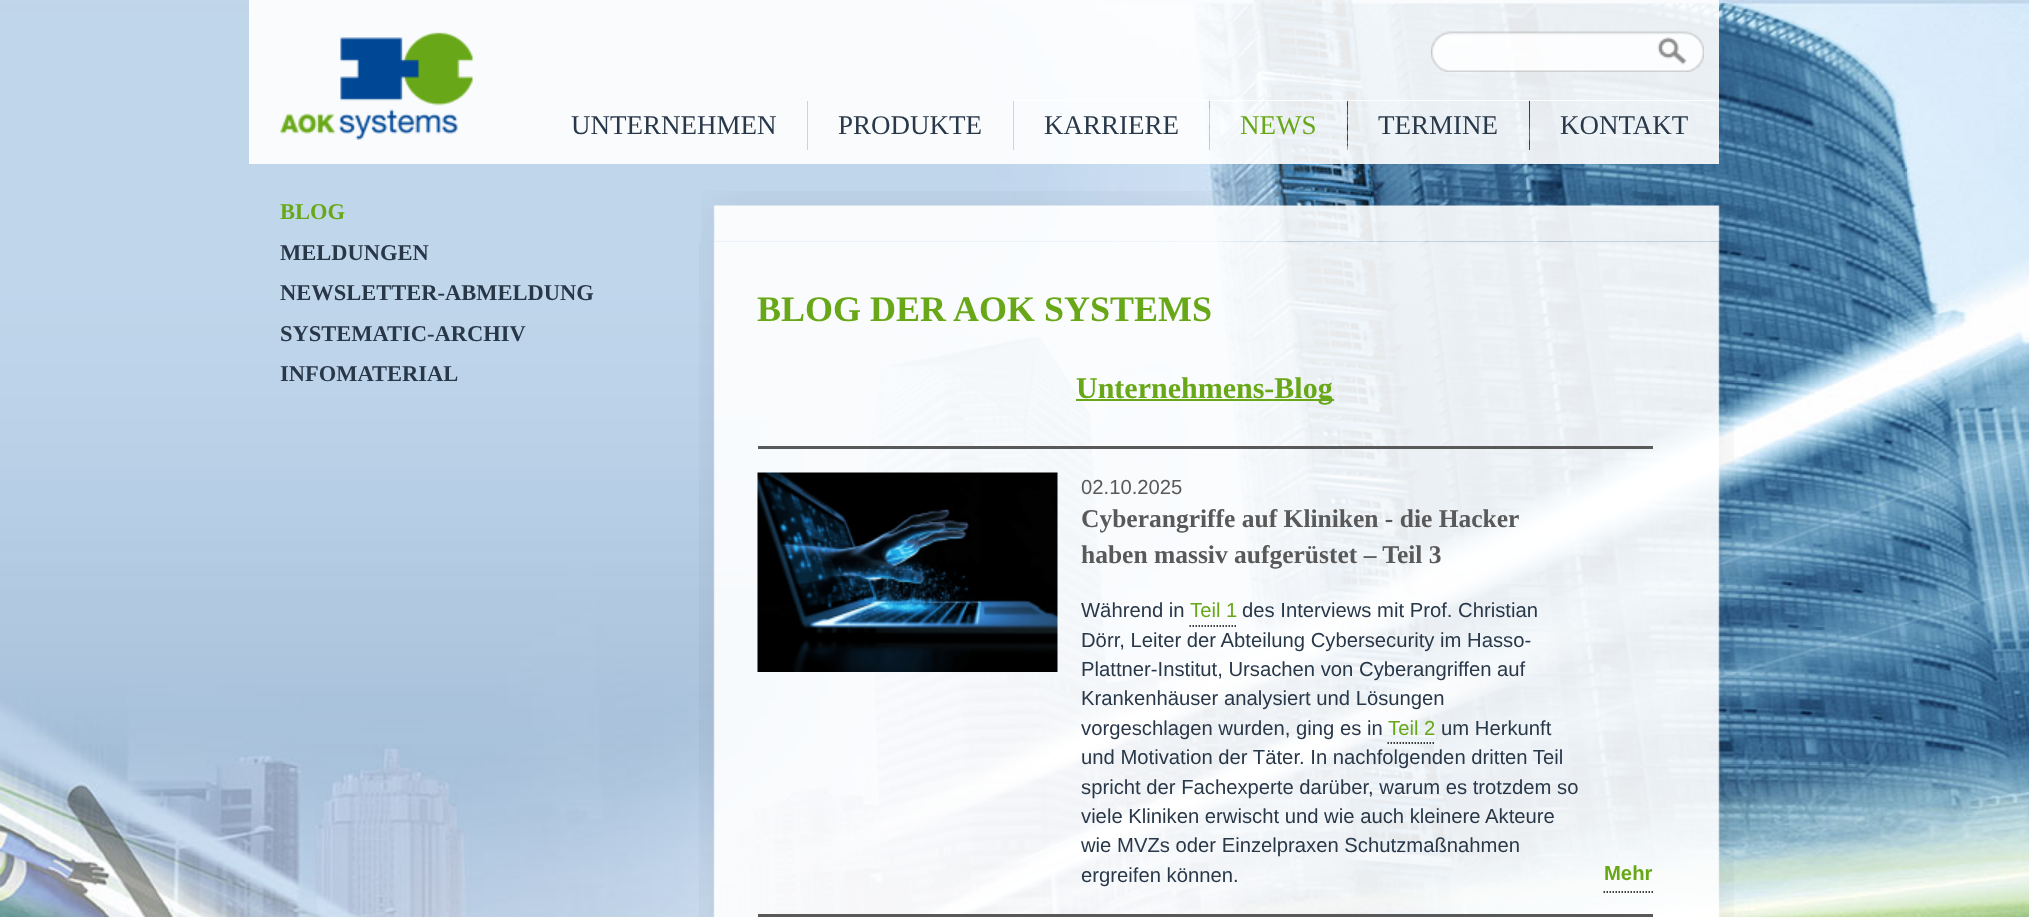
<svg xmlns="http://www.w3.org/2000/svg" width="2029" height="917" viewBox="0 0 2029 917">
  <rect width="100%" height="100%" fill="#fff"/>
  <image x="0" y="0" width="2029" height="917" href="img/1.png"/>
  <path d="M249 0h1470v101H249z" fill="#ffffffe6"/>
  <path d="M249 101h558v49H249z" fill="#f9fbfd"/>
  <image x="280" y="32" width="193" height="108" href="img/2.png"/>
  <image x="1431" y="31" width="225" height="41" href="img/3.png"/>
  <image x="1656" y="31" width="48" height="41" href="img/4.png"/>
  <path d="M808 101h205v49H808z" fill="#ffffffe6"/>
  <path d="M1014 100h195v50H1014z" fill="#ffffffe6"/>
  <path d="M1210 100h137v50H1210z" fill="#ffffffe6"/>
  <path d="M1348 100h181v50H1348z" fill="#ffffffe6"/>
  <path d="M1530 100h189v50H1530z" fill="#ffffffe6"/>
  <path d="M249 150h1470v14H249z" fill="#ffffffe6"/>
  <image x="699" y="241" width="1035" height="676" href="img/5.png"/>
  <image x="701" y="191" width="1028" height="51" href="img/6.png"/>
  <path d="M1076 399h258v2H1076z" fill="#68a818"/>
  <path d="M758 446h895v3H758z" fill="#595959"/>
  <image x="757" y="472" width="301" height="200" href="img/7.png"/>
  <path d="M1189.5 626H1237.5" fill="none" stroke="#000" stroke-width="1.5" stroke-dasharray="1.5 1.5"/>
  <path d="M1387.5 743H1435.5" fill="none" stroke="#000" stroke-width="1.5" stroke-dasharray="1.5 1.5"/>
  <path d="M1603.5 892H1653" fill="none" stroke="#000" stroke-width="1.5" stroke-dasharray="1.5 1.5"/>
  <path d="M758 914h895v3H758z" fill="#595959"/>
  <g font-family="Liberation Serif" font-size="27" fill="#283849">
    <text x="571" y="134">UNTERNEHMEN</text>
    <text x="838" y="134">PRODUKTE</text>
    <text x="1044" y="134">KARRIERE</text>
  </g>
  <text x="1240" y="134" font-family="Liberation Serif" font-size="27" fill="#68a818">NEWS</text>
  <g font-family="Liberation Serif" font-size="27" fill="#283849">
    <text x="1378" y="134">TERMINE</text>
    <text x="1560" y="134">KONTAKT</text>
  </g>
  <text x="280" y="219" font-family="Liberation Serif" font-size="22.5" font-weight="bold" fill="#68a818">BLOG</text>
  <g font-family="Liberation Serif" font-size="22.5" font-weight="bold" fill="#283849">
    <text x="280" y="260">MELDUNGEN</text>
    <text x="280" y="300">NEWSLETTER-ABMELDUNG</text>
    <text x="280" y="341">SYSTEMATIC-ARCHIV</text>
    <text x="280" y="381">INFOMATERIAL</text>
  </g>
  <text x="757" y="321" font-family="Liberation Serif" font-size="36" font-weight="bold" fill="#68a818">BLOG DER AOK SYSTEMS</text>
  <text x="1076" y="398" font-family="Liberation Serif" font-size="30" font-weight="bold" fill="#68a818">Unternehmens-Blog</text>
  <text x="1081" y="494" font-family="Liberation Sans" font-size="20.25" fill="#595959">02.10.2025</text>
  <g font-family="Liberation Serif" font-size="25.5" font-weight="bold" fill="#595959">
    <text x="1081" y="527">Cyberangriffe auf Kliniken - die Hacker</text>
    <text x="1081" y="563">haben massiv aufgerüstet – Teil 3</text>
  </g>
  <text x="1081" y="617" font-family="Liberation Sans" font-size="20.25" fill="#283849">Während in</text>
  <text x="1190" y="617" font-family="Liberation Sans" font-size="20.25" fill="#68a818">Teil 1</text>
  <g font-family="Liberation Sans" font-size="20.25" fill="#283849">
    <text x="1242" y="617">des Interviews mit Prof. Christian</text>
    <text x="1081" y="647">Dörr, Leiter der Abteilung Cybersecurity im Hasso-</text>
    <text x="1081" y="676">Plattner-Institut, Ursachen von Cyberangriffen auf</text>
    <text x="1081" y="705">Krankenhäuser analysiert und Lösungen</text>
    <text x="1081" y="735">vorgeschlagen wurden, ging es in</text>
  </g>
  <text x="1388" y="735" font-family="Liberation Sans" font-size="20.25" fill="#68a818">Teil 2</text>
  <g font-family="Liberation Sans" font-size="20.25" fill="#283849">
    <text x="1441" y="735">um Herkunft</text>
    <text x="1081" y="764">und Motivation der Täter. In nachfolgenden dritten Teil</text>
    <text x="1081" y="794">spricht der Fachexperte darüber, warum es trotzdem so</text>
    <text x="1081" y="823">viele Kliniken erwischt und wie auch kleinere Akteure</text>
    <text x="1081" y="852">wie MVZs oder Einzelpraxen Schutzmaßnahmen</text>
    <text x="1081" y="882">ergreifen können.</text>
  </g>
  <text x="1604" y="880" font-family="Liberation Sans" font-size="20.25" font-weight="bold" fill="#68a818">Mehr</text>
</svg>
